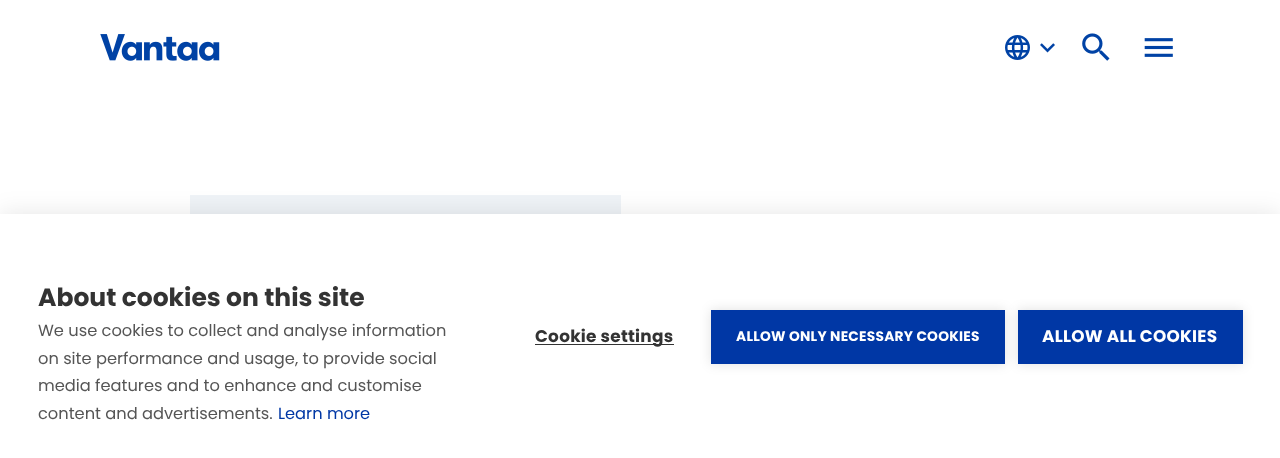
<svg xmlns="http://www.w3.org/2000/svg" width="1280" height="458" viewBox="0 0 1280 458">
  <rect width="100%" height="100%" fill="#fff"/>
  <image x="100" y="34" width="120" height="27" href="img/1.png"/>
  <image x="1005" y="35" width="25" height="25" href="img/2.png"/>
  <image x="1040" y="43" width="15" height="10" href="img/3.png"/>
  <image x="1082" y="33" width="28" height="28" href="img/4.png"/>
  <image x="1144" y="38" width="29" height="19" href="img/5.png"/>
  <path d="M190 195h431v19H190z" fill="#eff3f7"/>
  <path d="M0 214h1280v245H0z" fill="#0000001a" filter="blur(12.5px)"/>
  <path d="M0 214h1280v244H0z" fill="#fff"/>
  <path d="M535 344h139v1H535z" fill="#333"/>
  <path d="M711 310h294v54H711z" fill="#0000001f" filter="blur(6px)"/>
  <path d="M711 310h294v54H711z" fill="#0037a5"/>
  <path d="M1018 310h225v54H1018z" fill="#0000001f" filter="blur(6px)"/>
  <path d="M1018 310h225v54H1018z" fill="#0037a5"/>
  <text x="38" y="306" font-family="Poppins" font-size="25" font-weight="bold" fill="#333">About cookies on this site</text>
  <g font-family="Poppins" font-size="16.25" fill="#555">
    <text x="38" y="336">We use cookies to collect and analyse information</text>
    <text x="38" y="364">on site performance and usage, to provide social</text>
    <text x="38" y="391">media features and to enhance and customise</text>
    <text x="38" y="419">content and advertisements.</text>
  </g>
  <text x="278" y="419" font-family="Poppins" font-size="16.25" fill="#0037a5">Learn more</text>
  <text x="535" y="342" font-family="Poppins" font-size="16.9" font-weight="bold" letter-spacing="0.25" fill="#333">Cookie settings</text>
  <text x="736" y="341" font-family="Poppins" font-size="13.75" font-weight="bold" letter-spacing="0.25" fill="#fff">ALLOW ONLY NECESSARY COOKIES</text>
  <text x="1042" y="342" font-family="Poppins" font-size="16.9" font-weight="bold" letter-spacing="0.25" fill="#fff">ALLOW ALL COOKIES</text>
</svg>
